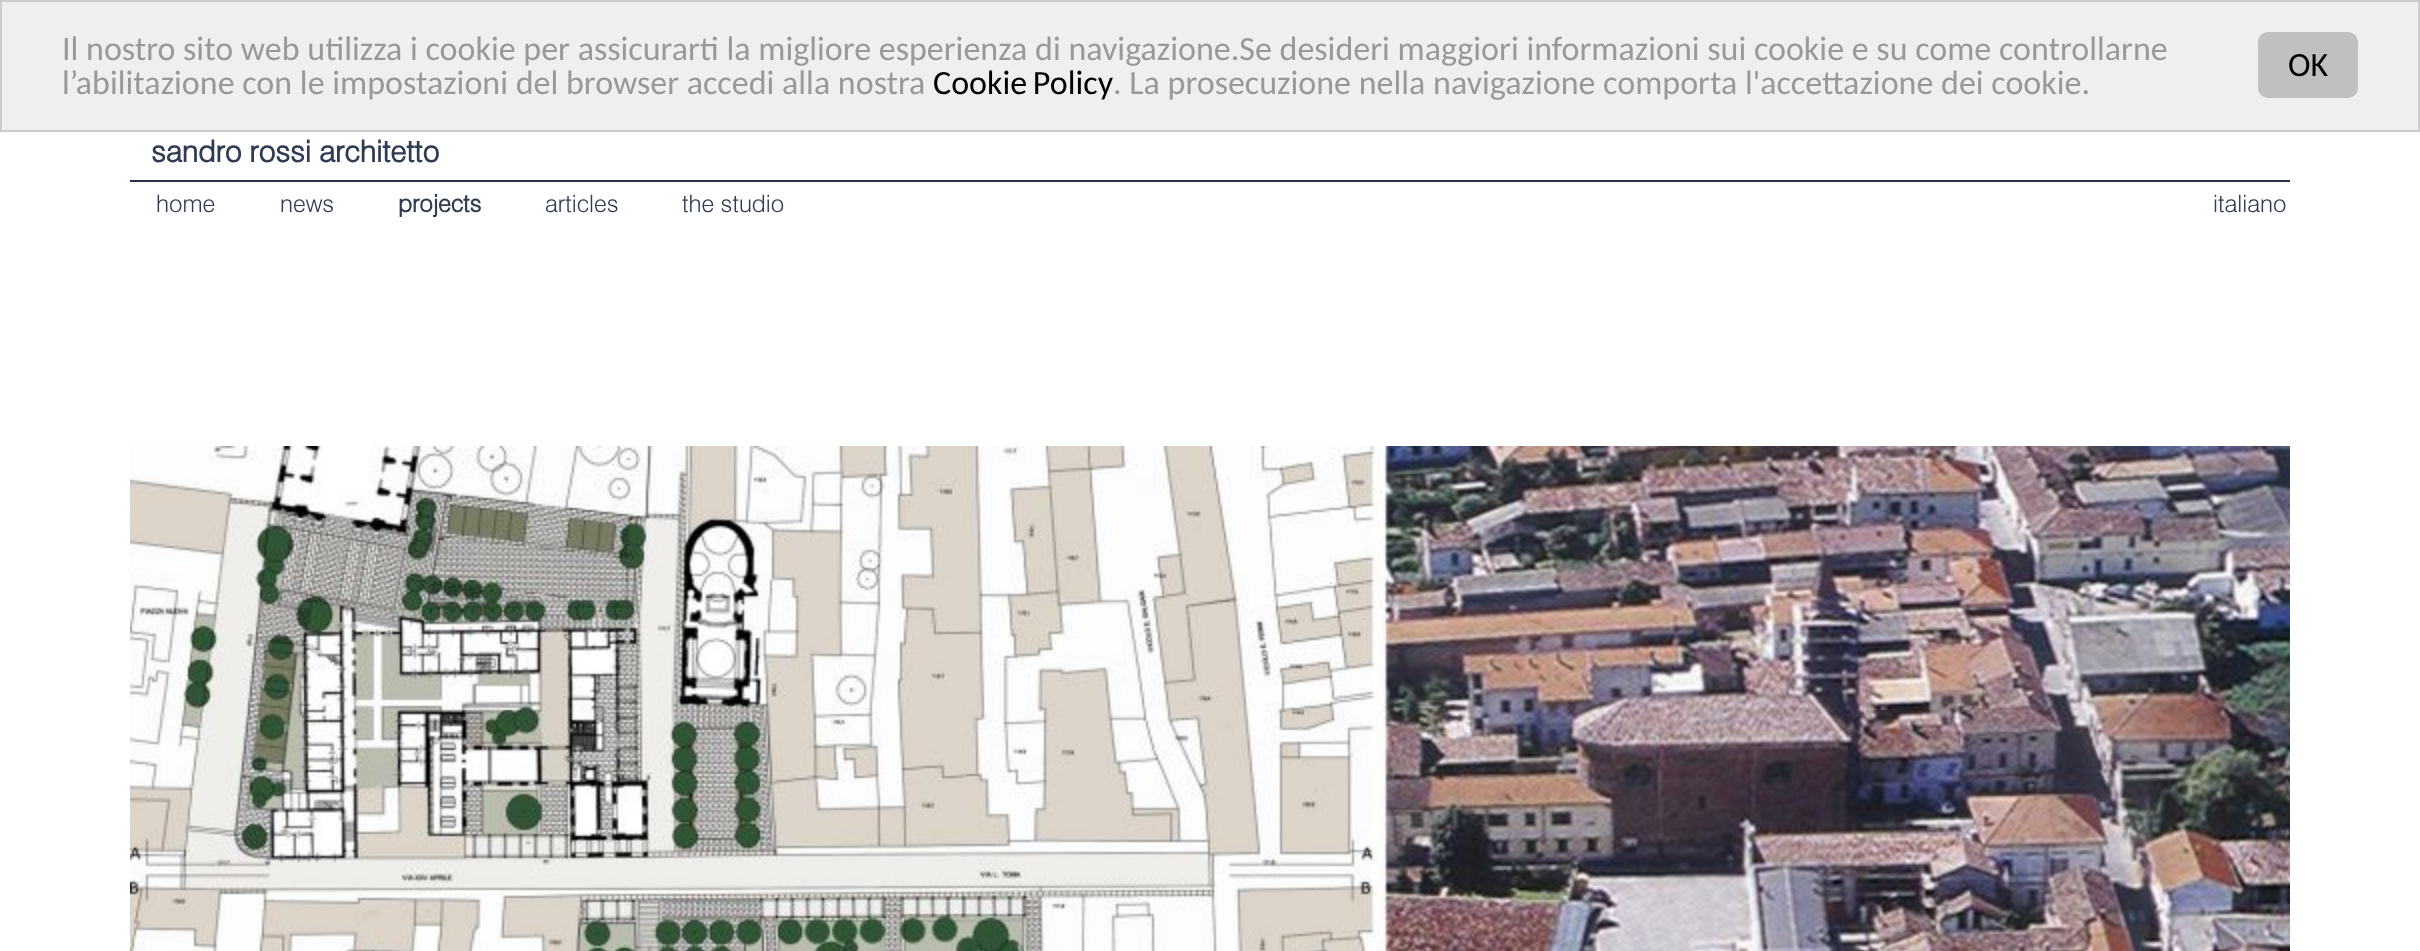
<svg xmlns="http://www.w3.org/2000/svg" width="2420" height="951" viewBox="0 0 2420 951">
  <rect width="100%" height="100%" fill="#fff"/>
  <path d="M1 1h2418v130H1z" fill="#efefef" stroke="#ccc" stroke-width="2"/>
  <rect x="2258" y="32" width="100" height="66" rx="10" fill="#c0c0c0"/>
  <path d="M130 180h2160v2H130z" fill="#263145"/>
  <image x="130" y="446" width="2160" height="505" href="img/1.png"/>
  <g font-family="Carlito" font-size="34" fill="#999">
    <text x="62" y="60">Il nostro sito web utilizza i cookie per assicurarti la migliore esperienza di navigazione.Se desideri maggiori informazioni sui cookie e su come controllarne</text>
    <text x="62" y="94">l’abilitazione con le impostazioni del browser accedi alla nostra</text>
  </g>
  <text x="933" y="94" word-spacing="-2" font-family="Carlito" font-size="34" fill="#000">Cookie Policy</text>
  <text x="1113" y="94" font-family="Carlito" font-size="34" fill="#999">. La prosecuzione nella navigazione comporta l'accettazione dei cookie.</text>
  <text x="2288" y="76" font-family="Carlito" font-size="34" fill="#000">OK</text>
  <text x="151" y="162" font-family="'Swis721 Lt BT'" font-size="30" font-weight="bold" fill="#2e3b53">sandro rossi architetto</text>
  <g font-family="'Swis721 Lt BT'" font-size="24" font-weight="300" fill="#2e3b53">
    <text x="156" y="212">home</text>
    <text x="280" y="212">news</text>
  </g>
  <text x="398" y="212" font-family="'Swis721 Lt BT'" font-size="24" font-weight="bold" fill="#2e3b53">projects</text>
  <g font-family="'Swis721 Lt BT'" font-size="24" font-weight="300" fill="#2e3b53">
    <text x="545" y="212">articles</text>
    <text x="682" y="212">the studio</text>
    <text x="2213" y="212">italiano</text>
  </g>
</svg>
